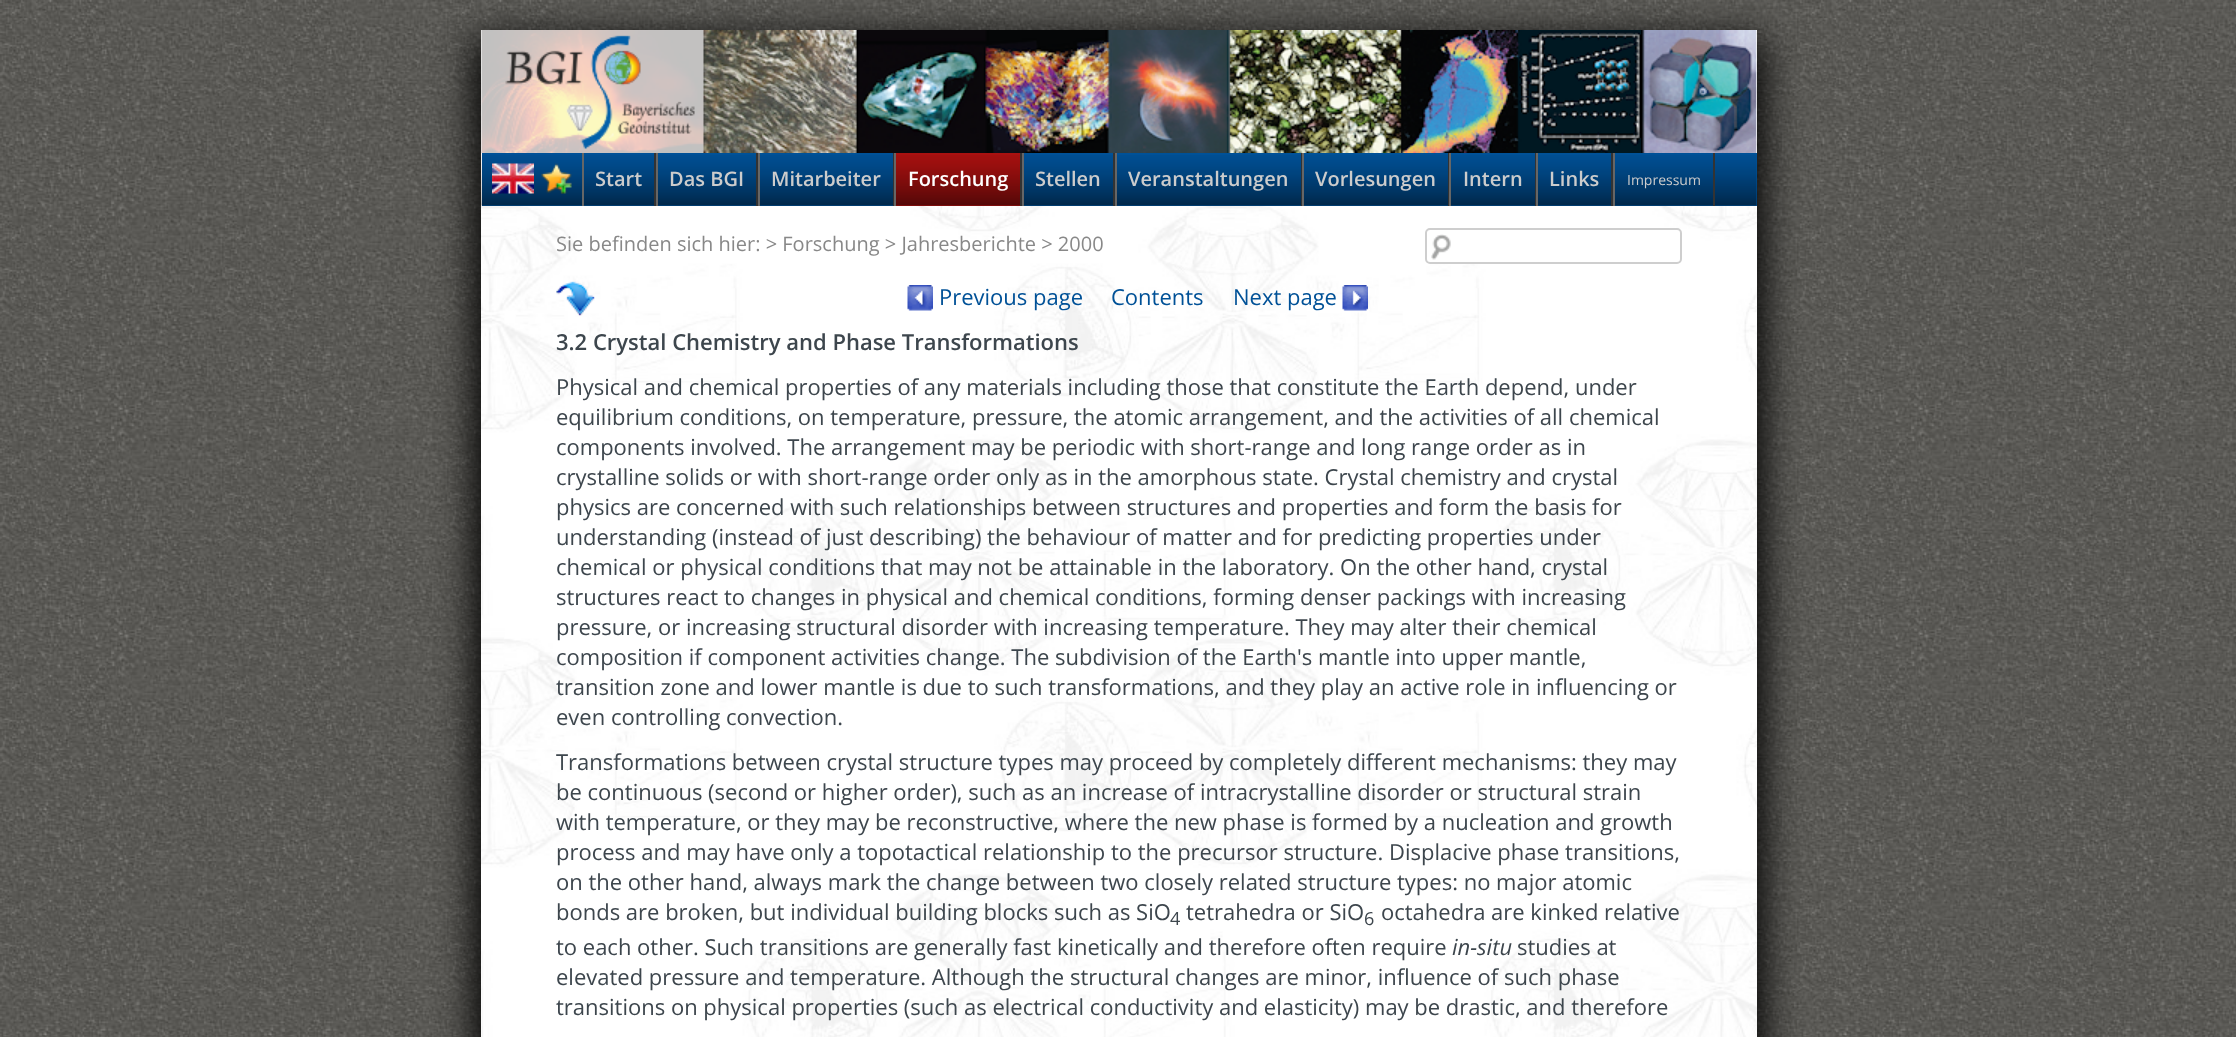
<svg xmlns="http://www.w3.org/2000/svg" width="2236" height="1037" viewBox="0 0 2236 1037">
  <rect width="100%" height="100%" fill="#fff"/>
  <image x="0" y="0" width="2236" height="1037" href="img/1.png"/>
  <path d="M474 38h1290v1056H474z" fill="#000" filter="blur(19px)"/>
  <image x="481" y="30" width="1276" height="1007" href="img/2.png"/>
  <image x="481" y="30" width="1276" height="123" href="img/3.png"/>
  <path d="M482 153h1275v53H482z" fill="#005197"/>
  <image x="481" y="155" width="1276" height="51" href="img/4.png"/>
  <image x="492" y="163" width="42" height="31" href="img/5.png"/>
  <image x="541" y="163" width="31" height="31" href="img/6.png"/>
  <path d="M654 153h2v53H654z" fill="#333"/>
  <path d="M582 153h2v53H582z" fill="#666"/>
  <path d="M756 153h2v53H756z" fill="#333"/>
  <path d="M656 153h2v53H656z" fill="#666"/>
  <path d="M893 153h1v53H893z" fill="#333"/>
  <path d="M758 153h2v53H758z" fill="#666"/>
  <path d="M896 153h124v53H896z" fill="#a91110"/>
  <image x="896" y="155" width="124" height="51" href="img/7.png"/>
  <path d="M1020 153h2v53H1020z" fill="#333"/>
  <path d="M894 153h2v53H894z" fill="#666"/>
  <path d="M1113 153h2v53H1113z" fill="#333"/>
  <path d="M1022 153h2v53H1022z" fill="#666"/>
  <path d="M1301 153h1v53H1301z" fill="#333"/>
  <path d="M1115 153h2v53H1115z" fill="#666"/>
  <path d="M1448 153h1v53H1448z" fill="#333"/>
  <path d="M1302 153h2v53H1302z" fill="#666"/>
  <path d="M1535 153h1v53H1535z" fill="#333"/>
  <path d="M1449 153h2v53H1449z" fill="#666"/>
  <path d="M1611 153h2v53H1611z" fill="#333"/>
  <path d="M1536 153h2v53H1536z" fill="#666"/>
  <path d="M1713 153h2v53H1713z" fill="#333"/>
  <path d="M1613 153h2v53H1613z" fill="#666"/>
  <image x="1431" y="234" width="20" height="26" href="img/8.png"/>
  <rect x="1426" y="229" width="255" height="34" rx="4" fill="none" stroke="#cecece" stroke-width="2"/>
  <image x="556" y="281" width="39" height="35" href="img/9.png"/>
  <image x="907" y="285" width="26" height="26" href="img/10.png"/>
  <image x="1342" y="285" width="26" height="26" href="img/11.png"/>
  <g font-family="Open Sans" font-size="20" font-weight="600" fill="#ccc">
    <text x="595" y="186">Start</text>
    <text x="669" y="186">Das BGI</text>
    <text x="771" y="186">Mitarbeiter</text>
  </g>
  <text x="908" y="186" font-family="Open Sans" font-size="20" font-weight="600" fill="#fff">Forschung</text>
  <g font-family="Open Sans" font-size="20" font-weight="600" fill="#ccc">
    <text x="1035" y="186">Stellen</text>
    <text x="1128" y="186">Veranstaltungen</text>
    <text x="1315" y="186">Vorlesungen</text>
    <text x="1463" y="186">Intern</text>
    <text x="1549" y="186">Links</text>
  </g>
  <text x="1627" y="185" font-family="Open Sans" font-size="14" fill="#ccc">Impressum</text>
  <text x="556" y="251" font-family="Open Sans" font-size="20" fill="#888">Sie befinden sich hier: &gt; Forschung &gt; Jahresberichte &gt; 2000</text>
  <g font-family="Open Sans" font-size="22" fill="#005197">
    <text x="939" y="305">Previous page</text>
    <text x="1111" y="305">Contents</text>
    <text x="1233" y="305">Next page</text>
  </g>
  <text x="556" y="350" font-family="Open Sans" font-size="22" font-weight="600" fill="#3d464d">3.2 Crystal Chemistry and Phase Transformations</text>
  <g font-family="Open Sans" font-size="22" fill="#3d464d">
    <text x="556" y="395">Physical and chemical properties of any materials including those that constitute the Earth depend, under</text>
    <text x="556" y="425">equilibrium conditions, on temperature, pressure, the atomic arrangement, and the activities of all chemical</text>
    <text x="556" y="455">components involved. The arrangement may be periodic with short-range and long range order as in</text>
    <text x="556" y="485">crystalline solids or with short-range order only as in the amorphous state. Crystal chemistry and crystal</text>
    <text x="556" y="515">physics are concerned with such relationships between structures and properties and form the basis for</text>
    <text x="556" y="545">understanding (instead of just describing) the behaviour of matter and for predicting properties under</text>
    <text x="556" y="575">chemical or physical conditions that may not be attainable in the laboratory. On the other hand, crystal</text>
    <text x="556" y="605">structures react to changes in physical and chemical conditions, forming denser packings with increasing</text>
    <text x="556" y="635">pressure, or increasing structural disorder with increasing temperature. They may alter their chemical</text>
    <text x="556" y="665">composition if component activities change. The subdivision of the Earth's mantle into upper mantle,</text>
    <text x="556" y="695">transition zone and lower mantle is due to such transformations, and they play an active role in influencing or</text>
    <text x="556" y="725">even controlling convection.</text>
    <text x="556" y="770">Transformations between crystal structure types may proceed by completely different mechanisms: they may</text>
    <text x="556" y="800">be continuous (second or higher order), such as an increase of intracrystalline disorder or structural strain</text>
    <text x="556" y="830">with temperature, or they may be reconstructive, where the new phase is formed by a nucleation and growth</text>
    <text x="556" y="860">process and may have only a topotactical relationship to the precursor structure. Displacive phase transitions,</text>
    <text x="556" y="890">on the other hand, always mark the change between two closely related structure types: no major atomic</text>
    <text x="556" y="920">bonds are broken, but individual building blocks such as SiO</text>
  </g>
  <text x="1170" y="925" font-family="Open Sans" font-size="18" fill="#3d464d">4</text>
  <text x="1186" y="920" font-family="Open Sans" font-size="22" fill="#3d464d">tetrahedra or SiO</text>
  <text x="1364" y="925" font-family="Open Sans" font-size="18" fill="#3d464d">6</text>
  <g font-family="Open Sans" font-size="22" fill="#3d464d">
    <text x="1381" y="920">octahedra are kinked relative</text>
    <text x="556" y="955">to each other. Such transitions are generally fast kinetically and therefore often require</text>
  </g>
  <text x="1452" y="955" font-family="Open Sans" font-size="22" font-style="italic" fill="#3d464d">in-situ</text>
  <g font-family="Open Sans" font-size="22" fill="#3d464d">
    <text x="1517" y="955">studies at</text>
    <text x="556" y="985">elevated pressure and temperature. Although the structural changes are minor, influence of such phase</text>
    <text x="556" y="1015">transitions on physical properties (such as electrical conductivity and elasticity) may be drastic, and therefore</text>
  </g>
</svg>
